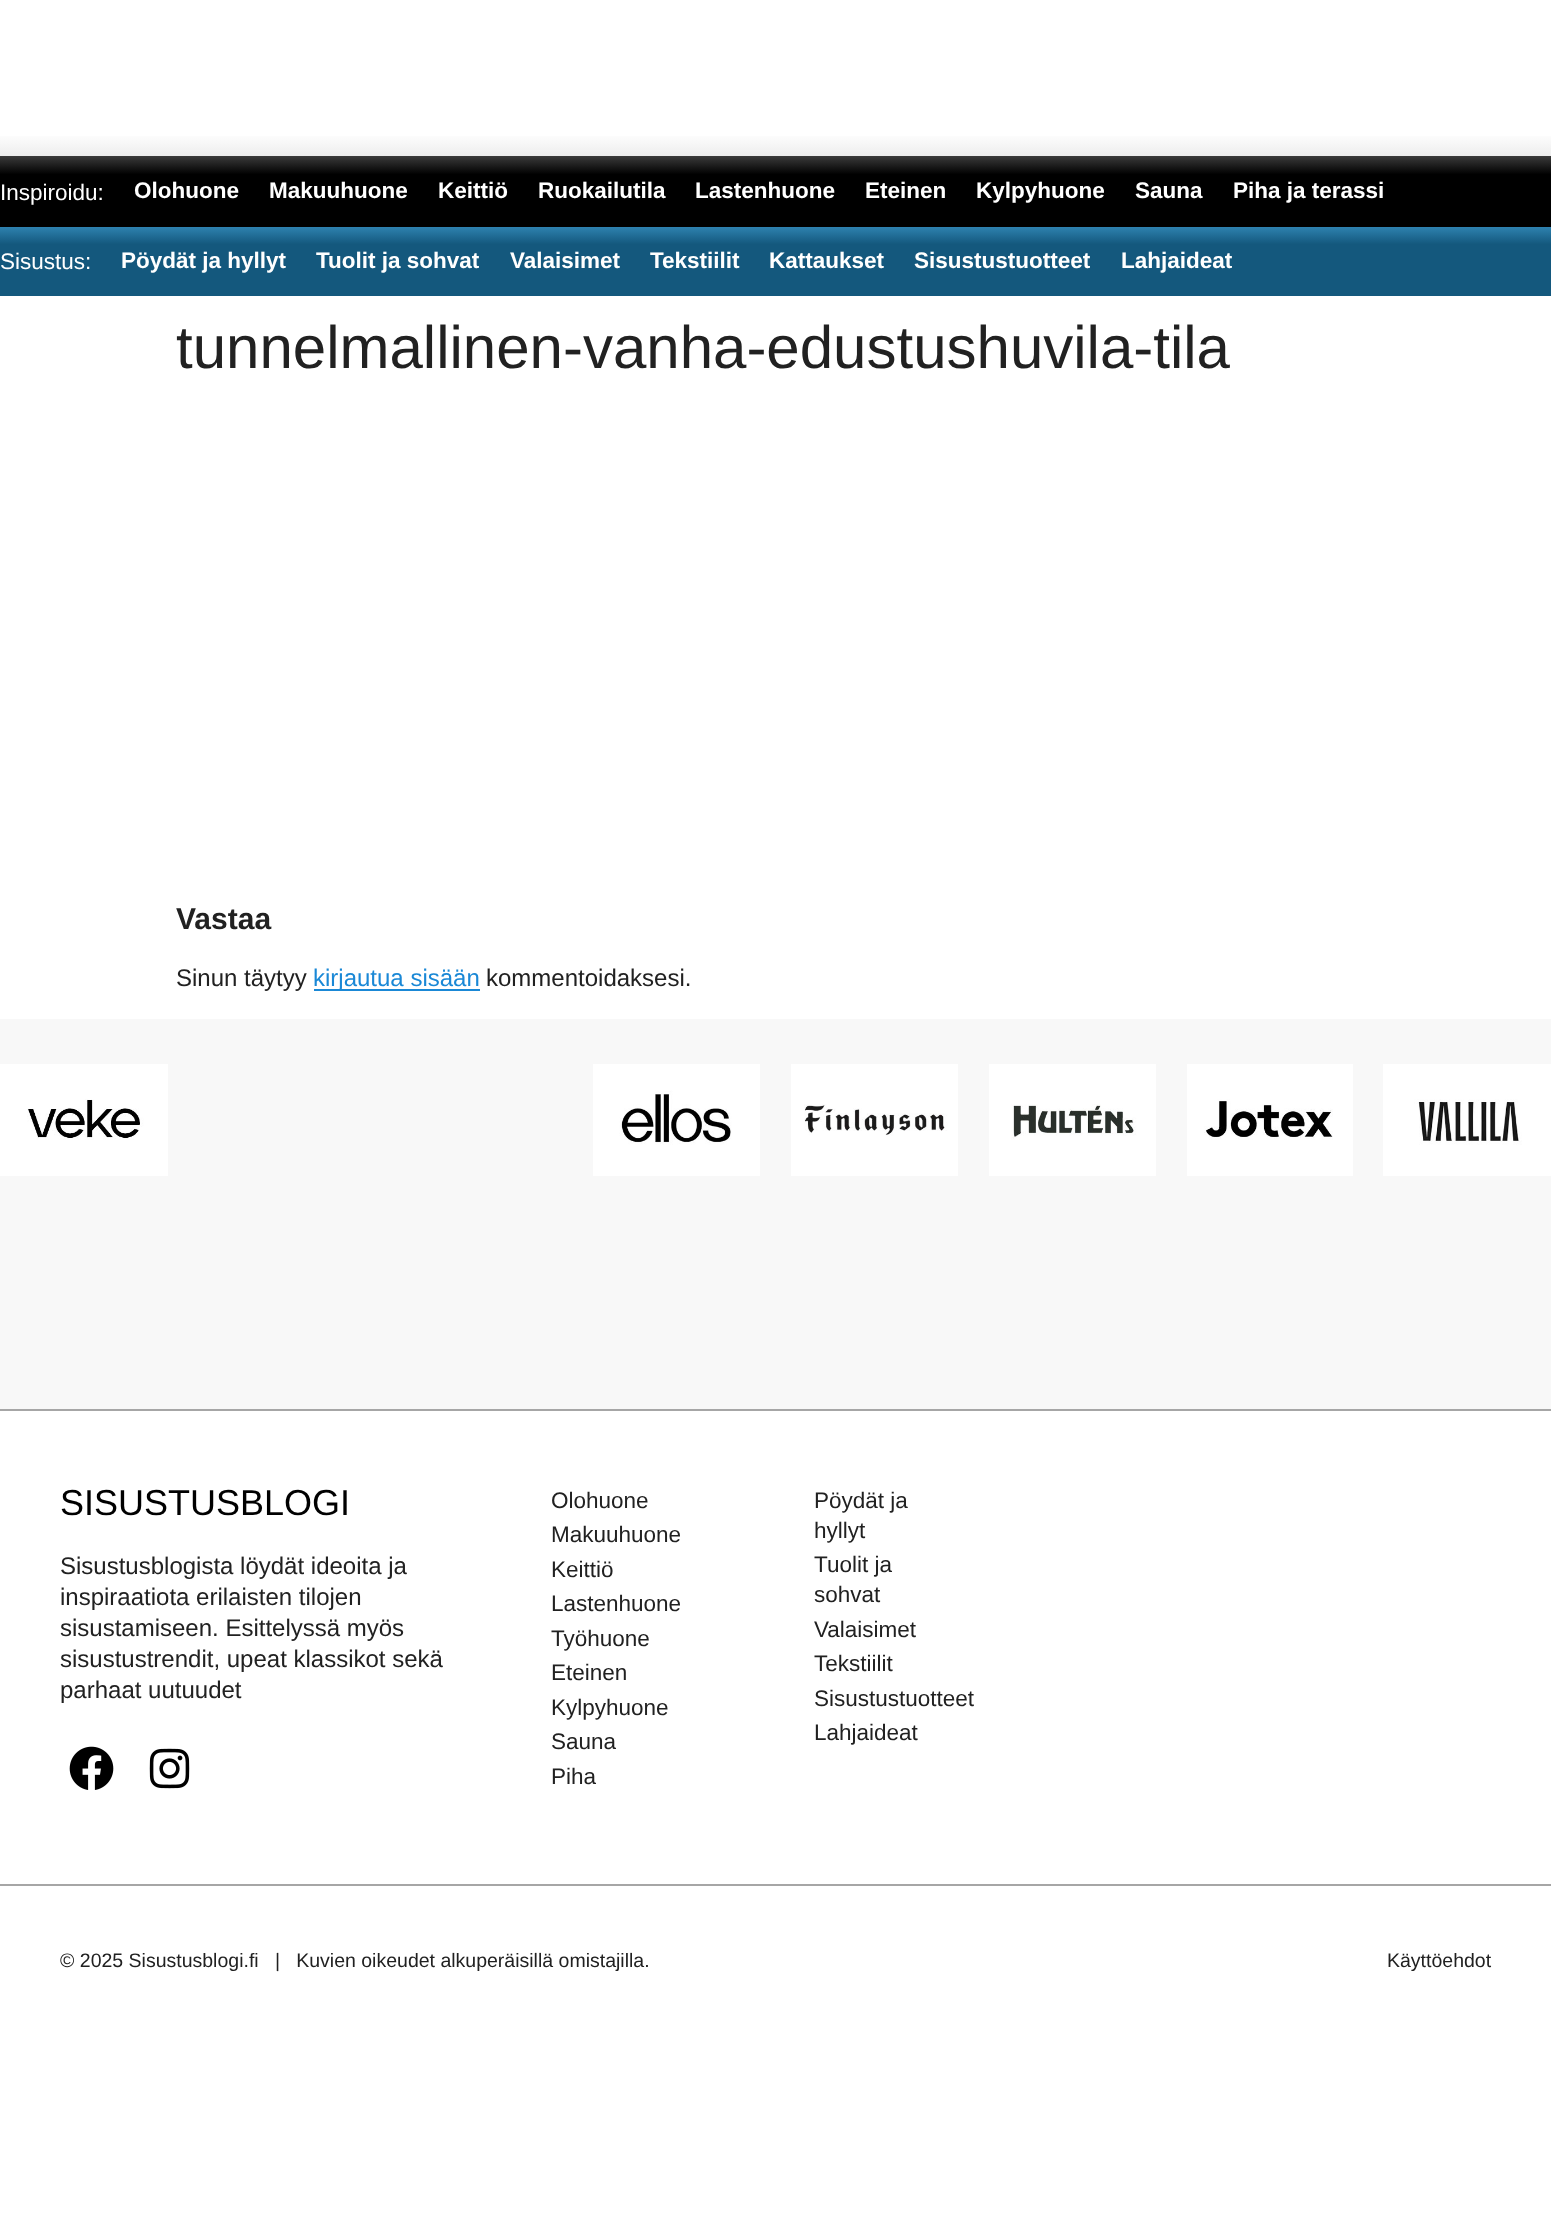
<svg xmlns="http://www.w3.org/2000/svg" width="1551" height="2232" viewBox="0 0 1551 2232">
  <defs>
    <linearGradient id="g1" gradientUnits="userSpaceOnUse" x1="776" y1="0" x2="776" y2="156"><stop offset="0.85" stop-color="#fff"/><stop offset="1" stop-color="#ededed"/></linearGradient>
    <linearGradient id="g2" gradientUnits="userSpaceOnUse" x1="776" y1="156" x2="776" y2="227"><stop offset="0" stop-color="#3b3b3b"/><stop offset="0.26" stop-color="#000"/></linearGradient>
    <linearGradient id="g3" gradientUnits="userSpaceOnUse" x1="776" y1="226" x2="776" y2="296"><stop offset="0" stop-color="#2f84b2"/><stop offset="0.26" stop-color="#14587d"/></linearGradient>
  </defs>
  <rect width="100%" height="100%" fill="#fff"/>
  <path d="M0 136h1551v20H0z" fill="url(#g1)"/>
  <path d="M0 156h1551v71H0z" fill="url(#g2)"/>
  <path d="M0 227h1551v69H0z" fill="url(#g3)"/>
  <path d="M314 989h166v2H314z" fill="#1a88d6"/>
  <path d="M0 1019h1551v390H0z" fill="#f8f8f8"/>
  <image x="0" y="1064" width="168" height="112" href="img/1.png"/>
  <image x="593" y="1064" width="167" height="112" href="img/2.png"/>
  <image x="791" y="1064" width="167" height="112" href="img/3.png"/>
  <image x="989" y="1064" width="167" height="112" href="img/4.png"/>
  <image x="1187" y="1064" width="166" height="112" href="img/5.png"/>
  <image x="1383" y="1064" width="168" height="112" href="img/6.png"/>
  <path d="M0 1409h1551v2H0z" fill="#a6a6a6"/>
  <image x="69" y="1746" width="45" height="44" href="img/7.png"/>
  <image x="149" y="1748" width="41" height="41" href="img/8.png"/>
  <path d="M0 1884h1551v2H0z" fill="#a6a6a6"/>
  <text x="0" y="200" font-family="Liberation Sans" font-size="22.5" fill="#fff">Inspiroidu:</text>
  <g font-family="Liberation Sans" font-size="22.5" font-weight="bold" fill="#fff">
    <text x="134" y="198">Olohuone</text>
    <text x="269" y="198">Makuuhuone</text>
    <text x="438" y="198">Keittiö</text>
    <text x="538" y="198">Ruokailutila</text>
    <text x="695" y="198">Lastenhuone</text>
    <text x="865" y="198">Eteinen</text>
    <text x="976" y="198">Kylpyhuone</text>
    <text x="1135" y="198">Sauna</text>
    <text x="1233" y="198">Piha ja terassi</text>
  </g>
  <text x="0" y="269" font-family="Liberation Sans" font-size="22.5" fill="#fff">Sisustus:</text>
  <g font-family="Liberation Sans" font-size="22.5" font-weight="bold" fill="#fff">
    <text x="121" y="268">Pöydät ja hyllyt</text>
    <text x="316" y="268">Tuolit ja sohvat</text>
    <text x="510" y="268">Valaisimet</text>
    <text x="650" y="268">Tekstiilit</text>
    <text x="769" y="268">Kattaukset</text>
    <text x="914" y="268">Sisustustuotteet</text>
    <text x="1121" y="268">Lahjaideat</text>
  </g>
  <text x="176" y="368" font-family="Liberation Sans" font-size="60" fill="#212121">tunnelmallinen-vanha-edustushuvila-tila</text>
  <text x="176" y="929" font-family="Liberation Sans" font-size="30" font-weight="bold" fill="#212121">Vastaa</text>
  <text x="176" y="986" font-family="Liberation Sans" font-size="24" fill="#212121">Sinun täytyy</text>
  <text x="313" y="986" font-family="Liberation Sans" font-size="24" fill="#1a88d6">kirjautua sisään</text>
  <text x="486" y="986" font-family="Liberation Sans" font-size="24" fill="#212121">kommentoidaksesi.</text>
  <text x="60" y="1515" font-family="Liberation Sans" font-size="36" fill="#000">SISUSTUSBLOGI</text>
  <g font-family="Liberation Sans" font-size="24" fill="#212121">
    <text x="60" y="1574">Sisustusblogista löydät ideoita ja</text>
    <text x="60" y="1605">inspiraatiota erilaisten tilojen</text>
    <text x="60" y="1636">sisustamiseen. Esittelyssä myös</text>
    <text x="60" y="1667">sisustustrendit, upeat klassikot sekä</text>
    <text x="60" y="1698">parhaat uutuudet</text>
  </g>
  <g font-family="Liberation Sans" font-size="22.5" fill="#212121">
    <text x="551" y="1508">Olohuone</text>
    <text x="551" y="1542">Makuuhuone</text>
    <text x="551" y="1577">Keittiö</text>
    <text x="551" y="1611">Lastenhuone</text>
    <text x="551" y="1646">Työhuone</text>
    <text x="551" y="1680">Eteinen</text>
    <text x="551" y="1715">Kylpyhuone</text>
    <text x="551" y="1749">Sauna</text>
    <text x="551" y="1784">Piha</text>
    <text x="814" y="1508">Pöydät ja</text>
    <text x="814" y="1538">hyllyt</text>
    <text x="814" y="1572">Tuolit ja</text>
    <text x="814" y="1602">sohvat</text>
    <text x="814" y="1637">Valaisimet</text>
    <text x="814" y="1671">Tekstiilit</text>
    <text x="814" y="1706">Sisustustuotteet</text>
    <text x="814" y="1740">Lahjaideat</text>
  </g>
  <g font-family="Liberation Sans" font-size="19.5" fill="#212121">
    <text x="60" y="1967" xml:space="preserve">© 2025 Sisustusblogi.fi   |   Kuvien oikeudet alkuperäisillä omistajilla.</text>
    <text x="1387" y="1967">Käyttöehdot</text>
  </g>
</svg>
